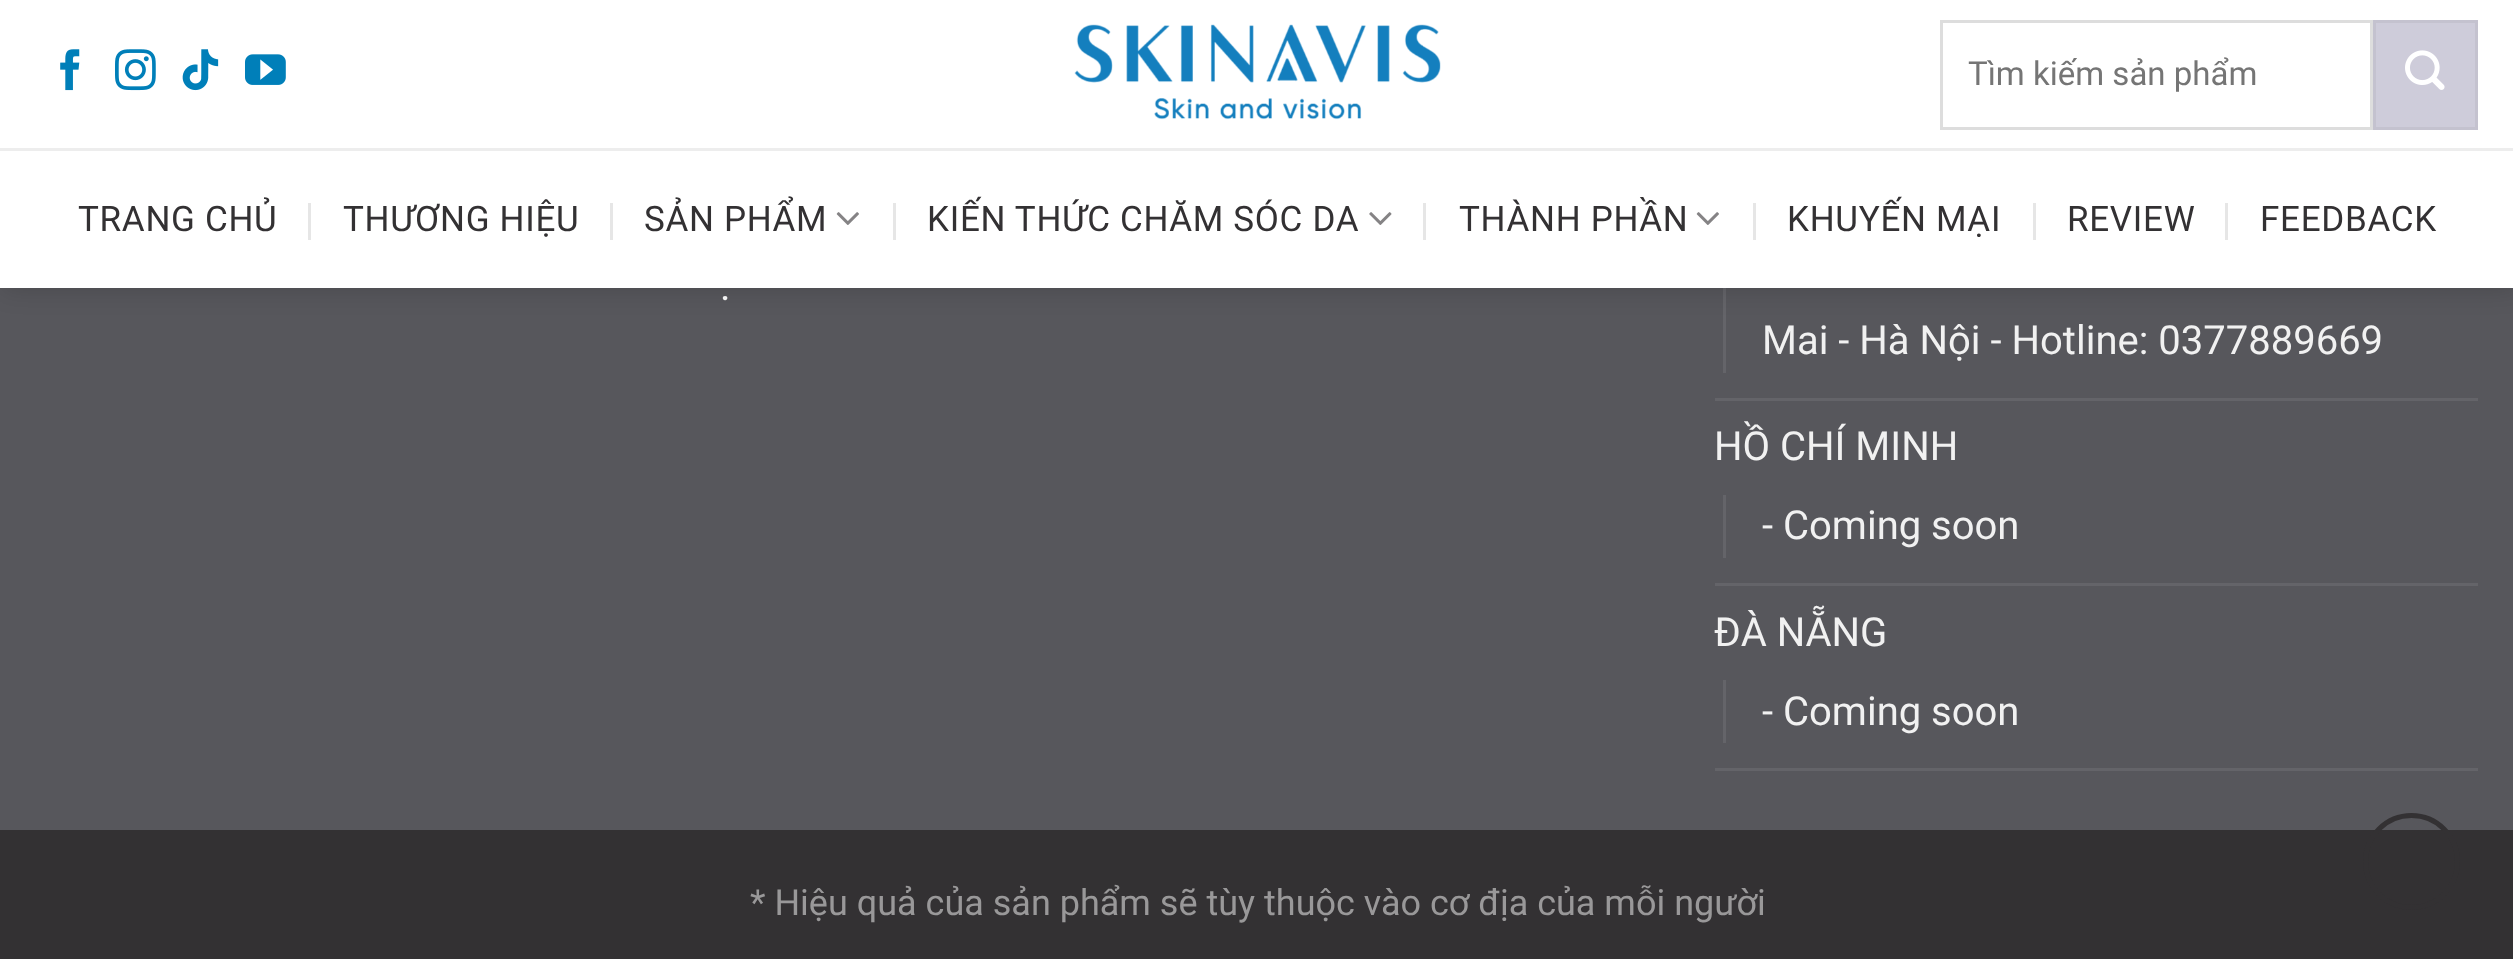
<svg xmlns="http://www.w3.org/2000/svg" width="2513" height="959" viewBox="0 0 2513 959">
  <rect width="100%" height="100%" fill="#57575c"/>
  <path d="M1723 288h3v85H1723z" fill="#646469"/>
  <path d="M3 3h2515v287H3z" fill="#00000026" filter="blur(12.5px)"/>
  <path d="M0 0h2513v288H0z" fill="#fff"/>
  <path d="M0 148h2513v3H0z" fill="#ededed"/>
  <image x="60" y="49" width="20" height="42" href="img/1.png"/>
  <image x="115" y="49" width="41" height="42" href="img/2.png"/>
  <image x="182" y="49" width="37" height="42" href="img/3.png"/>
  <image x="245" y="54" width="41" height="31" href="img/4.png"/>
  <image x="1074" y="24" width="367" height="96" href="img/5.png"/>
  <path d="M1941.5 21.5h430v107H1941.5z" fill="none" stroke="#ddd" stroke-width="3"/>
  <path d="M2374.5 21.5h102v107H2374.5z" fill="#ceccda" stroke="#c4c2cf" stroke-width="3"/>
  <image x="2405" y="50" width="40" height="40" href="img/6.png"/>
  <path d="M308 203h3v37H308z" fill="#e6e6e6"/>
  <path d="M610 203h3v37H610z" fill="#e6e6e6"/>
  <image x="836" y="212" width="23" height="13" href="img/7.png"/>
  <path d="M893 203h3v37H893z" fill="#e6e6e6"/>
  <image x="1369" y="212" width="23" height="13" href="img/8.png"/>
  <path d="M1423 203h3v37H1423z" fill="#e6e6e6"/>
  <image x="1696" y="212" width="23" height="13" href="img/7.png"/>
  <path d="M1753 203h3v37H1753z" fill="#e6e6e6"/>
  <path d="M2033 203h3v37H2033z" fill="#e6e6e6"/>
  <path d="M2225 203h3v37H2225z" fill="#e6e6e6"/>
  <path d="M1715 398h763v3H1715z" fill="#646469"/>
  <path d="M1715 583h763v3H1715z" fill="#646469"/>
  <path d="M1723 495h3v63H1723z" fill="#646469"/>
  <path d="M1715 768h763v3H1715z" fill="#646469"/>
  <path d="M1723 680h3v63H1723z" fill="#646469"/>
  <path d="M0 830h2513v129H0z" fill="#333133"/>
  <circle cx="2411.5" cy="861.5" r="46" fill="none" stroke="#333133" stroke-width="5"/>
  <text x="1968" y="85" font-family="Roboto" font-size="33" fill="#757575">Tìm kiếm sản phẩm</text>
  <g font-family="Roboto" font-size="35" letter-spacing="0.7" fill="#333133">
    <text x="78" y="231">TRANG CHỦ</text>
    <text x="343" y="231">THƯƠNG HIỆU</text>
    <text x="644" y="231">SẢN PHẨM</text>
    <text x="927" y="231">KIẾN THỨC CHĂM SÓC DA</text>
    <text x="1459" y="231">THÀNH PHẦN</text>
    <text x="1787" y="231">KHUYẾN MẠI</text>
    <text x="2067" y="231">REVIEW</text>
    <text x="2260" y="231">FEEDBACK</text>
  </g>
  <g font-family="Roboto" font-size="40" fill="#f1f1f1">
    <text x="720" y="300">.</text>
    <text x="1762" y="354">Mai - Hà Nội - Hotline: 0377889669</text>
    <text x="1714" y="460">HỒ CHÍ MINH</text>
    <text x="1762" y="539">- Coming soon</text>
    <text x="1714" y="646">ĐÀ NẴNG</text>
    <text x="1762" y="725">- Coming soon</text>
  </g>
  <text x="750" y="915" font-family="Roboto" font-size="36" fill="#999899">* Hiệu quả của sản phẩm sẽ tùy thuộc vào cơ địa của mỗi người</text>
</svg>
